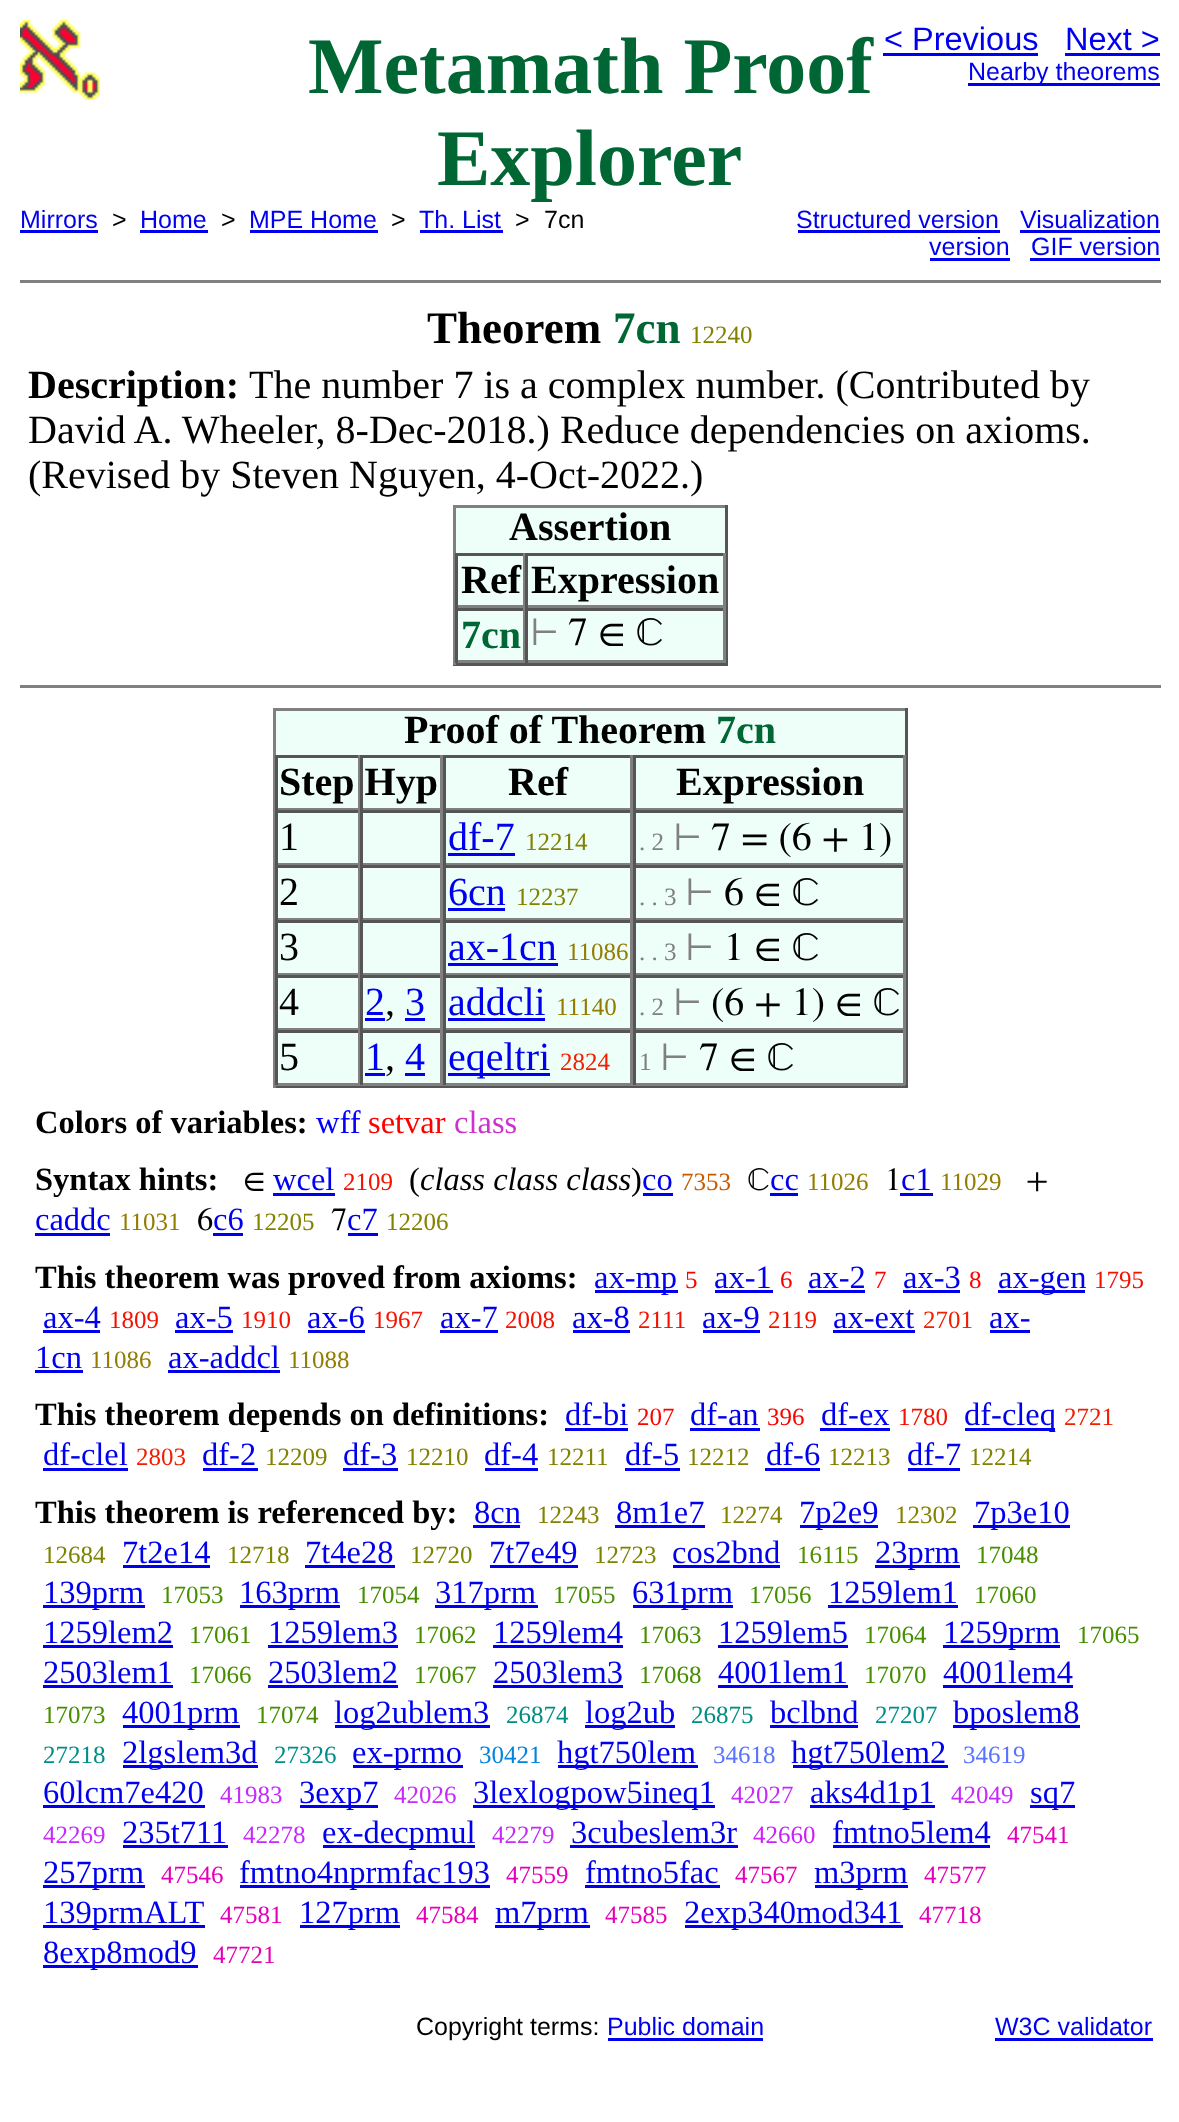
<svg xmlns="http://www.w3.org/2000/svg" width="1179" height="2122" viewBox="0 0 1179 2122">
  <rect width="100%" height="100%" fill="#fff"/>
  <image x="20" y="20" width="80" height="80" href="img/1.png"/>
  <path d="M883 53h155v3H883z" fill="#00e"/>
  <path d="M1065 53h95v3H1065z" fill="#00e"/>
  <path d="M968 83h192v3H968z" fill="#00e"/>
  <path d="M20 230h78v3H20z" fill="#00e"/>
  <path d="M140 230h68v3H140z" fill="#00e"/>
  <path d="M250 230h128v3H250z" fill="#00e"/>
  <path d="M420 230h83v3H420z" fill="#00e"/>
  <path d="M798 230h202v3H798z" fill="#00e"/>
  <path d="M1020 230h140v3H1020z" fill="#00e"/>
  <path d="M930 258h80v3H930z" fill="#00e"/>
  <path d="M1030 258h130v3H1030z" fill="#00e"/>
  <path d="M20 280h1141v3H20z" fill="#808080"/>
  <path d="M456 508h269v152H456z" fill="#eefffa"/>
  <path d="M453 505h275v3H453z" fill="#808080"/>
  <path d="M725 505h3v160H725z" fill="#555"/>
  <path d="M453 663h275v3H453z" fill="#555"/>
  <path d="M453 505h3v160H453z" fill="#808080"/>
  <path d="M455 553h270v3H455z" fill="#555"/>
  <path d="M723 553h3v55H723z" fill="#808080"/>
  <path d="M525 605h200v3H525z" fill="#808080"/>
  <path d="M525 553h3v55H525z" fill="#555"/>
  <path d="M523 553h2v55H523z" fill="#808080"/>
  <path d="M455 605h70v3H455z" fill="#808080"/>
  <path d="M455 553h3v55H455z" fill="#555"/>
  <path d="M455 608h270v3H455z" fill="#555"/>
  <path d="M523 608h2v55H523z" fill="#808080"/>
  <path d="M455 660h70v3H455z" fill="#808080"/>
  <path d="M455 608h3v55H455z" fill="#555"/>
  <path d="M723 608h3v55H723z" fill="#808080"/>
  <path d="M525 660h200v3H525z" fill="#808080"/>
  <path d="M525 608h3v55H525z" fill="#555"/>
  <path d="M20 685h1141v3H20z" fill="#808080"/>
  <path d="M276 711h629v372H276z" fill="#eefffa"/>
  <path d="M273 708h635v3H273z" fill="#808080"/>
  <path d="M905 708h3v380H905z" fill="#555"/>
  <path d="M273 1085h635v3H273z" fill="#555"/>
  <path d="M273 708h3v380H273z" fill="#808080"/>
  <path d="M275 755h630v3H275z" fill="#555"/>
  <path d="M440 755h3v55H440z" fill="#808080"/>
  <path d="M360 808h83v2H360z" fill="#808080"/>
  <path d="M360 755h3v55H360z" fill="#555"/>
  <path d="M630 755h3v55H630z" fill="#808080"/>
  <path d="M443 808h190v2H443z" fill="#808080"/>
  <path d="M443 755h3v55H443z" fill="#555"/>
  <path d="M903 755h3v55H903z" fill="#808080"/>
  <path d="M633 808h272v2H633z" fill="#808080"/>
  <path d="M633 755h3v55H633z" fill="#555"/>
  <path d="M358 755h2v55H358z" fill="#808080"/>
  <path d="M275 808h85v2H275z" fill="#808080"/>
  <path d="M275 755h3v55H275z" fill="#555"/>
  <path d="M275 810h630v3H275z" fill="#555"/>
  <path d="M358 810h2v55H358z" fill="#808080"/>
  <path d="M275 863h85v2H275z" fill="#808080"/>
  <path d="M275 810h3v55H275z" fill="#555"/>
  <path d="M440 810h3v55H440z" fill="#808080"/>
  <path d="M360 863h83v2H360z" fill="#808080"/>
  <path d="M360 810h3v55H360z" fill="#555"/>
  <path d="M630 810h3v55H630z" fill="#808080"/>
  <path d="M443 863h190v2H443z" fill="#808080"/>
  <path d="M443 810h3v55H443z" fill="#555"/>
  <path d="M448 853h67v3H448z" fill="#00e"/>
  <path d="M903 810h3v55H903z" fill="#808080"/>
  <path d="M633 863h272v2H633z" fill="#808080"/>
  <path d="M633 810h3v55H633z" fill="#555"/>
  <path d="M275 865h630v3H275z" fill="#555"/>
  <path d="M358 865h2v55H358z" fill="#808080"/>
  <path d="M275 918h85v2H275z" fill="#808080"/>
  <path d="M275 865h3v55H275z" fill="#555"/>
  <path d="M440 865h3v55H440z" fill="#808080"/>
  <path d="M360 918h83v2H360z" fill="#808080"/>
  <path d="M360 865h3v55H360z" fill="#555"/>
  <path d="M630 865h3v55H630z" fill="#808080"/>
  <path d="M443 918h190v2H443z" fill="#808080"/>
  <path d="M443 865h3v55H443z" fill="#555"/>
  <path d="M448 908h57v3H448z" fill="#00e"/>
  <path d="M903 865h3v55H903z" fill="#808080"/>
  <path d="M633 918h272v2H633z" fill="#808080"/>
  <path d="M633 865h3v55H633z" fill="#555"/>
  <path d="M275 920h630v3H275z" fill="#555"/>
  <path d="M358 920h2v55H358z" fill="#808080"/>
  <path d="M275 973h85v2H275z" fill="#808080"/>
  <path d="M275 920h3v55H275z" fill="#555"/>
  <path d="M440 920h3v55H440z" fill="#808080"/>
  <path d="M360 973h83v2H360z" fill="#808080"/>
  <path d="M360 920h3v55H360z" fill="#555"/>
  <path d="M630 920h3v55H630z" fill="#808080"/>
  <path d="M443 973h190v2H443z" fill="#808080"/>
  <path d="M443 920h3v55H443z" fill="#555"/>
  <path d="M448 963h110v3H448z" fill="#00e"/>
  <path d="M903 920h3v55H903z" fill="#808080"/>
  <path d="M633 973h272v2H633z" fill="#808080"/>
  <path d="M633 920h3v55H633z" fill="#555"/>
  <path d="M275 975h630v3H275z" fill="#555"/>
  <path d="M358 975h2v55H358z" fill="#808080"/>
  <path d="M275 1028h85v2H275z" fill="#808080"/>
  <path d="M275 975h3v55H275z" fill="#555"/>
  <path d="M440 975h3v55H440z" fill="#808080"/>
  <path d="M360 1028h83v2H360z" fill="#808080"/>
  <path d="M360 975h3v55H360z" fill="#555"/>
  <path d="M365 1018h20v3H365z" fill="#00e"/>
  <path d="M405 1018h20v3H405z" fill="#00e"/>
  <path d="M630 975h3v55H630z" fill="#808080"/>
  <path d="M443 1028h190v2H443z" fill="#808080"/>
  <path d="M443 975h3v55H443z" fill="#555"/>
  <path d="M448 1018h97v3H448z" fill="#00e"/>
  <path d="M903 975h3v55H903z" fill="#808080"/>
  <path d="M633 1028h272v2H633z" fill="#808080"/>
  <path d="M633 975h3v55H633z" fill="#555"/>
  <path d="M275 1030h630v3H275z" fill="#555"/>
  <path d="M358 1030h2v55H358z" fill="#808080"/>
  <path d="M275 1083h85v3H275z" fill="#808080"/>
  <path d="M275 1030h3v55H275z" fill="#555"/>
  <path d="M440 1030h3v55H440z" fill="#808080"/>
  <path d="M360 1083h83v3H360z" fill="#808080"/>
  <path d="M360 1030h3v55H360z" fill="#555"/>
  <path d="M365 1073h20v3H365z" fill="#00e"/>
  <path d="M405 1073h20v3H405z" fill="#00e"/>
  <path d="M630 1030h3v55H630z" fill="#808080"/>
  <path d="M443 1083h190v3H443z" fill="#808080"/>
  <path d="M443 1030h3v55H443z" fill="#555"/>
  <path d="M448 1073h102v3H448z" fill="#00e"/>
  <path d="M903 1030h3v55H903z" fill="#808080"/>
  <path d="M633 1083h272v3H633z" fill="#808080"/>
  <path d="M633 1030h3v55H633z" fill="#555"/>
  <path d="M273 1193h62v3H273z" fill="#00e"/>
  <path d="M643 1193h30v3H643z" fill="#00e"/>
  <path d="M770 1193h28v3H770z" fill="#00e"/>
  <path d="M900 1193h33v3H900z" fill="#00e"/>
  <path d="M35 1233h75v3H35z" fill="#00e"/>
  <path d="M213 1233h30v3H213z" fill="#00e"/>
  <path d="M348 1233h30v3H348z" fill="#00e"/>
  <path d="M595 1290h83v3H595z" fill="#00e"/>
  <path d="M715 1290h58v3H715z" fill="#00e"/>
  <path d="M808 1290h57v3H808z" fill="#00e"/>
  <path d="M903 1290h57v3H903z" fill="#00e"/>
  <path d="M998 1290h87v3H998z" fill="#00e"/>
  <path d="M43 1330h57v3H43z" fill="#00e"/>
  <path d="M175 1330h58v3H175z" fill="#00e"/>
  <path d="M308 1330h57v3H308z" fill="#00e"/>
  <path d="M440 1330h58v3H440z" fill="#00e"/>
  <path d="M573 1330h57v3H573z" fill="#00e"/>
  <path d="M703 1330h57v3H703z" fill="#00e"/>
  <path d="M833 1330h82v3H833z" fill="#00e"/>
  <path d="M990 1330h40v3H990z" fill="#00e"/>
  <path d="M35 1370h48v3H35z" fill="#00e"/>
  <path d="M168 1370h112v3H168z" fill="#00e"/>
  <path d="M565 1428h63v3H565z" fill="#00e"/>
  <path d="M690 1428h70v3H690z" fill="#00e"/>
  <path d="M820 1428h70v3H820z" fill="#00e"/>
  <path d="M965 1428h90v3H965z" fill="#00e"/>
  <path d="M43 1468h85v3H43z" fill="#00e"/>
  <path d="M203 1468h55v3H203z" fill="#00e"/>
  <path d="M343 1468h55v3H343z" fill="#00e"/>
  <path d="M485 1468h53v3H485z" fill="#00e"/>
  <path d="M625 1468h55v3H625z" fill="#00e"/>
  <path d="M765 1468h55v3H765z" fill="#00e"/>
  <path d="M908 1468h52v3H908z" fill="#00e"/>
  <path d="M473 1525h47v3H473z" fill="#00e"/>
  <path d="M615 1525h90v3H615z" fill="#00e"/>
  <path d="M800 1525h78v3H800z" fill="#00e"/>
  <path d="M973 1525h97v3H973z" fill="#00e"/>
  <path d="M123 1565h87v3H123z" fill="#00e"/>
  <path d="M305 1565h90v3H305z" fill="#00e"/>
  <path d="M490 1565h88v3H490z" fill="#00e"/>
  <path d="M673 1565h107v3H673z" fill="#00e"/>
  <path d="M875 1565h85v3H875z" fill="#00e"/>
  <path d="M43 1605h102v3H43z" fill="#00e"/>
  <path d="M240 1605h100v3H240z" fill="#00e"/>
  <path d="M435 1605h103v3H435z" fill="#00e"/>
  <path d="M633 1605h100v3H633z" fill="#00e"/>
  <path d="M828 1605h130v3H828z" fill="#00e"/>
  <path d="M43 1645h130v3H43z" fill="#00e"/>
  <path d="M268 1645h130v3H268z" fill="#00e"/>
  <path d="M493 1645h130v3H493z" fill="#00e"/>
  <path d="M718 1645h130v3H718z" fill="#00e"/>
  <path d="M943 1645h117v3H943z" fill="#00e"/>
  <path d="M43 1685h130v3H43z" fill="#00e"/>
  <path d="M268 1685h130v3H268z" fill="#00e"/>
  <path d="M493 1685h130v3H493z" fill="#00e"/>
  <path d="M718 1685h130v3H718z" fill="#00e"/>
  <path d="M943 1685h130v3H943z" fill="#00e"/>
  <path d="M123 1725h117v3H123z" fill="#00e"/>
  <path d="M335 1725h155v3H335z" fill="#00e"/>
  <path d="M585 1725h90v3H585z" fill="#00e"/>
  <path d="M770 1725h88v3H770z" fill="#00e"/>
  <path d="M953 1725h127v3H953z" fill="#00e"/>
  <path d="M123 1765h135v3H123z" fill="#00e"/>
  <path d="M353 1765h110v3H353z" fill="#00e"/>
  <path d="M558 1765h140v3H558z" fill="#00e"/>
  <path d="M793 1765h155v3H793z" fill="#00e"/>
  <path d="M43 1805h162v3H43z" fill="#00e"/>
  <path d="M300 1805h78v3H300z" fill="#00e"/>
  <path d="M473 1805h242v3H473z" fill="#00e"/>
  <path d="M810 1805h125v3H810z" fill="#00e"/>
  <path d="M1030 1805h45v3H1030z" fill="#00e"/>
  <path d="M123 1845h105v3H123z" fill="#00e"/>
  <path d="M323 1845h152v3H323z" fill="#00e"/>
  <path d="M570 1845h168v3H570z" fill="#00e"/>
  <path d="M833 1845h157v3H833z" fill="#00e"/>
  <path d="M43 1885h102v3H43z" fill="#00e"/>
  <path d="M240 1885h250v3H240z" fill="#00e"/>
  <path d="M585 1885h135v3H585z" fill="#00e"/>
  <path d="M815 1885h93v3H815z" fill="#00e"/>
  <path d="M43 1925h162v3H43z" fill="#00e"/>
  <path d="M300 1925h100v3H300z" fill="#00e"/>
  <path d="M495 1925h95v3H495z" fill="#00e"/>
  <path d="M685 1925h218v3H685z" fill="#00e"/>
  <path d="M43 1965h155v3H43z" fill="#00e"/>
  <path d="M608 2038h155v3H608z" fill="#00e"/>
  <path d="M995 2038h158v3H995z" fill="#00e"/>
  <g font-family="Liberation Serif" font-size="80" font-weight="bold" fill="#063">
    <text x="308" y="93">Metamath Proof</text>
    <text x="437" y="185">Explorer</text>
  </g>
  <g font-family="Liberation Sans" font-size="32.5" fill="#00e">
    <text x="884" y="50">&lt; Previous</text>
    <text x="1065" y="50">Next &gt;</text>
  </g>
  <g font-family="Liberation Sans" font-size="25" fill="#00e">
    <text x="968" y="80">Nearby theorems</text>
    <text x="20" y="228">Mirrors</text>
  </g>
  <text x="112" y="228" font-family="Liberation Sans" font-size="25" fill="#000">&gt;</text>
  <text x="140" y="228" font-family="Liberation Sans" font-size="25" fill="#00e">Home</text>
  <text x="221" y="228" font-family="Liberation Sans" font-size="25" fill="#000">&gt;</text>
  <text x="249" y="228" font-family="Liberation Sans" font-size="25" fill="#00e">MPE Home</text>
  <text x="391" y="228" font-family="Liberation Sans" font-size="25" fill="#000">&gt;</text>
  <text x="419" y="228" font-family="Liberation Sans" font-size="25" fill="#00e">Th. List</text>
  <g font-family="Liberation Sans" font-size="25" fill="#000">
    <text x="515" y="228">&gt;</text>
    <text x="544" y="228">7cn</text>
  </g>
  <g font-family="Liberation Sans" font-size="25" fill="#00e">
    <text x="796" y="228">Structured version</text>
    <text x="1020" y="228">Visualization</text>
    <text x="929" y="255">version</text>
    <text x="1031" y="255">GIF version</text>
  </g>
  <text x="427" y="343" font-family="Liberation Serif" font-size="45" font-weight="bold" fill="#000">Theorem</text>
  <text x="613" y="343" font-family="Liberation Serif" font-size="45" font-weight="bold" fill="#063">7cn</text>
  <text x="690" y="343" font-family="Liberation Serif" font-size="25" fill="#828100">12240</text>
  <text x="28" y="398" font-family="Liberation Serif" font-size="40" font-weight="bold" fill="#000">Description:</text>
  <g font-family="Liberation Serif" font-size="40" fill="#000">
    <text x="249" y="398">The number 7 is a complex number. (Contributed by</text>
    <text x="28" y="443">David A. Wheeler, 8-Dec-2018.) Reduce dependencies on axioms.</text>
    <text x="28" y="488">(Revised by Steven Nguyen, 4-Oct-2022.)</text>
  </g>
  <g font-family="Liberation Serif" font-size="40" font-weight="bold" fill="#000">
    <text x="509" y="540">Assertion</text>
    <text x="461" y="593">Ref Expression</text>
  </g>
  <text x="461" y="648" font-family="Liberation Serif" font-size="40" font-weight="bold" fill="#063">7cn</text>
  <text x="531" y="645" font-family="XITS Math" font-size="40" fill="#808080">⊢</text>
  <text x="568" y="645" font-family="XITS Math" font-size="40" fill="#000">7 ∈ ℂ</text>
  <text x="404" y="743" font-family="Liberation Serif" font-size="40" font-weight="bold" fill="#000">Proof of Theorem</text>
  <text x="716" y="743" font-family="Liberation Serif" font-size="40" font-weight="bold" fill="#063">7cn</text>
  <g font-family="Liberation Serif" font-size="40" font-weight="bold" fill="#000">
    <text x="508" y="795">Ref</text>
    <text x="676" y="795">Expression</text>
    <text x="279" y="795">Step Hyp</text>
  </g>
  <text x="279" y="850" font-family="Liberation Serif" font-size="40" fill="#000">1</text>
  <text x="448" y="850" font-family="Liberation Serif" font-size="40" fill="#00e">df-7</text>
  <text x="525" y="850" font-family="Liberation Serif" font-size="25" fill="#828100">12214</text>
  <text x="639" y="850" font-family="Liberation Serif" font-size="25" fill="#808080">. 2</text>
  <text x="674" y="850" font-family="XITS Math" font-size="40" fill="#808080">⊢</text>
  <text x="711" y="850" font-family="XITS Math" font-size="40" fill="#000">7 = (6 + 1)</text>
  <text x="279" y="905" font-family="Liberation Serif" font-size="40" fill="#000">2</text>
  <text x="448" y="905" font-family="Liberation Serif" font-size="40" fill="#00e">6cn</text>
  <text x="516" y="905" font-family="Liberation Serif" font-size="25" fill="#828100">12237</text>
  <text x="639" y="905" font-family="Liberation Serif" font-size="25" fill="#808080">. . 3</text>
  <text x="686" y="905" font-family="XITS Math" font-size="40" fill="#808080">⊢</text>
  <text x="724" y="905" font-family="XITS Math" font-size="40" fill="#000">6 ∈ ℂ</text>
  <text x="279" y="960" font-family="Liberation Serif" font-size="40" fill="#000">3</text>
  <text x="448" y="960" font-family="Liberation Serif" font-size="40" fill="#00e">ax-1cn</text>
  <text x="567" y="960" font-family="Liberation Serif" font-size="25" fill="#937c00">11086</text>
  <text x="639" y="960" font-family="Liberation Serif" font-size="25" fill="#808080">. . 3</text>
  <text x="686" y="960" font-family="XITS Math" font-size="40" fill="#808080">⊢</text>
  <text x="724" y="960" font-family="XITS Math" font-size="40" fill="#000">1 ∈ ℂ</text>
  <text x="279" y="1015" font-family="Liberation Serif" font-size="40" fill="#000">4</text>
  <text x="365" y="1015" font-family="Liberation Serif" font-size="40" fill="#00e">2</text>
  <text x="385" y="1015" font-family="Liberation Serif" font-size="40" fill="#000">,</text>
  <g font-family="Liberation Serif" font-size="40" fill="#00e">
    <text x="405" y="1015">3</text>
    <text x="448" y="1015">addcli</text>
  </g>
  <text x="556" y="1015" font-family="Liberation Serif" font-size="25" fill="#937c00">11140</text>
  <text x="639" y="1015" font-family="Liberation Serif" font-size="25" fill="#808080">. 2</text>
  <text x="674" y="1015" font-family="XITS Math" font-size="40" fill="#808080">⊢</text>
  <text x="711" y="1015" font-family="XITS Math" font-size="40" fill="#000">(6 + 1) ∈ ℂ</text>
  <text x="279" y="1070" font-family="Liberation Serif" font-size="40" fill="#000">5</text>
  <text x="365" y="1070" font-family="Liberation Serif" font-size="40" fill="#00e">1</text>
  <text x="385" y="1070" font-family="Liberation Serif" font-size="40" fill="#000">,</text>
  <g font-family="Liberation Serif" font-size="40" fill="#00e">
    <text x="405" y="1070">4</text>
    <text x="448" y="1070">eqeltri</text>
  </g>
  <text x="560" y="1070" font-family="Liberation Serif" font-size="25" fill="#f11e00">2824</text>
  <text x="639" y="1070" font-family="Liberation Serif" font-size="25" fill="#808080">1</text>
  <text x="661" y="1070" font-family="XITS Math" font-size="40" fill="#808080">⊢</text>
  <text x="699" y="1070" font-family="XITS Math" font-size="40" fill="#000">7 ∈ ℂ</text>
  <text x="35" y="1133" font-family="Liberation Serif" font-size="32.5" font-weight="bold" fill="#000">Colors of variables:</text>
  <text x="316" y="1133" font-family="Liberation Serif" font-size="32.5" fill="#00f">wff</text>
  <text x="368" y="1133" font-family="Liberation Serif" font-size="32.5" fill="#f00">setvar</text>
  <text x="454" y="1133" font-family="Liberation Serif" font-size="32.5" fill="#c3c">class</text>
  <text x="35" y="1190" font-family="Liberation Serif" font-size="32.5" font-weight="bold" fill="#000">Syntax hints:</text>
  <text x="243" y="1190" font-family="XITS Math" font-size="32.5" fill="#000">∈</text>
  <text x="273" y="1190" font-family="Liberation Serif" font-size="32.5" fill="#00e">wcel</text>
  <text x="343" y="1190" font-family="Liberation Serif" font-size="25" fill="#f51100">2109</text>
  <text x="409" y="1190" font-family="Liberation Serif" font-size="32.5" fill="#000">(</text>
  <text x="420" y="1190" font-family="Liberation Serif" font-size="32.5" font-style="italic" fill="#000">class class class</text>
  <text x="631" y="1190" font-family="Liberation Serif" font-size="32.5" fill="#000">)</text>
  <text x="642" y="1190" font-family="Liberation Serif" font-size="32.5" fill="#00e">co</text>
  <text x="681" y="1190" font-family="Liberation Serif" font-size="25" fill="#c75b00">7353</text>
  <text x="747" y="1190" font-family="XITS Math" font-size="32.5" fill="#000">ℂ</text>
  <text x="770" y="1190" font-family="Liberation Serif" font-size="32.5" fill="#00e">cc</text>
  <text x="807" y="1190" font-family="Liberation Serif" font-size="25" fill="#937c00">11026</text>
  <text x="885" y="1190" font-family="XITS Math" font-size="32.5" fill="#000">1</text>
  <text x="901" y="1190" font-family="Liberation Serif" font-size="32.5" fill="#00e">c1</text>
  <text x="940" y="1190" font-family="Liberation Serif" font-size="25" fill="#937c00">11029</text>
  <text x="1026" y="1190" font-family="XITS Math" font-size="32.5" fill="#000">+</text>
  <text x="35" y="1230" font-family="Liberation Serif" font-size="32.5" fill="#00e">caddc</text>
  <text x="119" y="1230" font-family="Liberation Serif" font-size="25" fill="#937c00">11031</text>
  <text x="197" y="1230" font-family="XITS Math" font-size="32.5" fill="#000">6</text>
  <text x="213" y="1230" font-family="Liberation Serif" font-size="32.5" fill="#00e">c6</text>
  <text x="252" y="1230" font-family="Liberation Serif" font-size="25" fill="#828100">12205</text>
  <text x="331" y="1230" font-family="XITS Math" font-size="32.5" fill="#000">7</text>
  <text x="347" y="1230" font-family="Liberation Serif" font-size="32.5" fill="#00e">c7</text>
  <text x="386" y="1230" font-family="Liberation Serif" font-size="25" fill="#828100">12206</text>
  <text x="35" y="1288" font-family="Liberation Serif" font-size="32.5" font-weight="bold" fill="#000">This theorem was proved from axioms:</text>
  <text x="594" y="1288" font-family="Liberation Serif" font-size="32.5" fill="#00e">ax-mp</text>
  <text x="685" y="1288" font-family="Liberation Serif" font-size="25" fill="#f00">5</text>
  <text x="714" y="1288" font-family="Liberation Serif" font-size="32.5" fill="#00e">ax-1</text>
  <text x="780" y="1288" font-family="Liberation Serif" font-size="25" fill="#f00">6</text>
  <text x="808" y="1288" font-family="Liberation Serif" font-size="32.5" fill="#00e">ax-2</text>
  <text x="874" y="1288" font-family="Liberation Serif" font-size="25" fill="#f00">7</text>
  <text x="903" y="1288" font-family="Liberation Serif" font-size="32.5" fill="#00e">ax-3</text>
  <text x="969" y="1288" font-family="Liberation Serif" font-size="25" fill="#f00">8</text>
  <text x="998" y="1288" font-family="Liberation Serif" font-size="32.5" fill="#00e">ax-gen</text>
  <text x="1094" y="1288" font-family="Liberation Serif" font-size="25" fill="#f51100">1795</text>
  <text x="43" y="1328" font-family="Liberation Serif" font-size="32.5" fill="#00e">ax-4</text>
  <text x="109" y="1328" font-family="Liberation Serif" font-size="25" fill="#f51100">1809</text>
  <text x="175" y="1328" font-family="Liberation Serif" font-size="32.5" fill="#00e">ax-5</text>
  <text x="241" y="1328" font-family="Liberation Serif" font-size="25" fill="#f51100">1910</text>
  <text x="307" y="1328" font-family="Liberation Serif" font-size="32.5" fill="#00e">ax-6</text>
  <text x="373" y="1328" font-family="Liberation Serif" font-size="25" fill="#f51100">1967</text>
  <text x="440" y="1328" font-family="Liberation Serif" font-size="32.5" fill="#00e">ax-7</text>
  <text x="505" y="1328" font-family="Liberation Serif" font-size="25" fill="#f51100">2008</text>
  <text x="572" y="1328" font-family="Liberation Serif" font-size="32.5" fill="#00e">ax-8</text>
  <text x="638" y="1328" font-family="Liberation Serif" font-size="25" fill="#f51100">2111</text>
  <text x="702" y="1328" font-family="Liberation Serif" font-size="32.5" fill="#00e">ax-9</text>
  <text x="768" y="1328" font-family="Liberation Serif" font-size="25" fill="#f51100">2119</text>
  <text x="833" y="1328" font-family="Liberation Serif" font-size="32.5" fill="#00e">ax-ext</text>
  <text x="923" y="1328" font-family="Liberation Serif" font-size="25" fill="#f11e00">2701</text>
  <g font-family="Liberation Serif" font-size="32.5" fill="#00e">
    <text x="989" y="1328">ax-</text>
    <text x="35" y="1368">1cn</text>
  </g>
  <text x="90" y="1368" font-family="Liberation Serif" font-size="25" fill="#937c00">11086</text>
  <text x="168" y="1368" font-family="Liberation Serif" font-size="32.5" fill="#00e">ax-addcl</text>
  <text x="288" y="1368" font-family="Liberation Serif" font-size="25" fill="#937c00">11088</text>
  <text x="35" y="1425" font-family="Liberation Serif" font-size="32.5" font-weight="bold" fill="#000">This theorem depends on definitions:</text>
  <text x="565" y="1425" font-family="Liberation Serif" font-size="32.5" fill="#00e">df-bi</text>
  <text x="637" y="1425" font-family="Liberation Serif" font-size="25" fill="#f00">207</text>
  <text x="690" y="1425" font-family="Liberation Serif" font-size="32.5" fill="#00e">df-an</text>
  <text x="767" y="1425" font-family="Liberation Serif" font-size="25" fill="#f00">396</text>
  <text x="821" y="1425" font-family="Liberation Serif" font-size="32.5" fill="#00e">df-ex</text>
  <text x="898" y="1425" font-family="Liberation Serif" font-size="25" fill="#f51100">1780</text>
  <text x="964" y="1425" font-family="Liberation Serif" font-size="32.5" fill="#00e">df-cleq</text>
  <text x="1064" y="1425" font-family="Liberation Serif" font-size="25" fill="#f11e00">2721</text>
  <text x="43" y="1465" font-family="Liberation Serif" font-size="32.5" fill="#00e">df-clel</text>
  <text x="136" y="1465" font-family="Liberation Serif" font-size="25" fill="#f11e00">2803</text>
  <text x="202" y="1465" font-family="Liberation Serif" font-size="32.5" fill="#00e">df-2</text>
  <text x="265" y="1465" font-family="Liberation Serif" font-size="25" fill="#828100">12209</text>
  <text x="343" y="1465" font-family="Liberation Serif" font-size="32.5" fill="#00e">df-3</text>
  <text x="406" y="1465" font-family="Liberation Serif" font-size="25" fill="#828100">12210</text>
  <text x="484" y="1465" font-family="Liberation Serif" font-size="32.5" fill="#00e">df-4</text>
  <text x="547" y="1465" font-family="Liberation Serif" font-size="25" fill="#828100">12211</text>
  <text x="625" y="1465" font-family="Liberation Serif" font-size="32.5" fill="#00e">df-5</text>
  <text x="687" y="1465" font-family="Liberation Serif" font-size="25" fill="#828100">12212</text>
  <text x="766" y="1465" font-family="Liberation Serif" font-size="32.5" fill="#00e">df-6</text>
  <text x="828" y="1465" font-family="Liberation Serif" font-size="25" fill="#828100">12213</text>
  <text x="907" y="1465" font-family="Liberation Serif" font-size="32.5" fill="#00e">df-7</text>
  <text x="969" y="1465" font-family="Liberation Serif" font-size="25" fill="#828100">12214</text>
  <text x="35" y="1523" font-family="Liberation Serif" font-size="32.5" font-weight="bold" fill="#000">This theorem is referenced by:</text>
  <text x="474" y="1523" font-family="Liberation Serif" font-size="32.5" fill="#00e">8cn</text>
  <text x="537" y="1523" font-family="Liberation Serif" font-size="25" fill="#828100">12243</text>
  <text x="616" y="1523" font-family="Liberation Serif" font-size="32.5" fill="#00e">8m1e7</text>
  <text x="720" y="1523" font-family="Liberation Serif" font-size="25" fill="#828100">12274</text>
  <text x="799" y="1523" font-family="Liberation Serif" font-size="32.5" fill="#00e">7p2e9</text>
  <text x="895" y="1523" font-family="Liberation Serif" font-size="25" fill="#828100">12302</text>
  <text x="974" y="1523" font-family="Liberation Serif" font-size="32.5" fill="#00e">7p3e10</text>
  <text x="43" y="1563" font-family="Liberation Serif" font-size="25" fill="#7c8300">12684</text>
  <text x="122" y="1563" font-family="Liberation Serif" font-size="32.5" fill="#00e">7t2e14</text>
  <text x="227" y="1563" font-family="Liberation Serif" font-size="25" fill="#7c8300">12718</text>
  <text x="305" y="1563" font-family="Liberation Serif" font-size="32.5" fill="#00e">7t4e28</text>
  <text x="410" y="1563" font-family="Liberation Serif" font-size="25" fill="#7c8300">12720</text>
  <text x="489" y="1563" font-family="Liberation Serif" font-size="32.5" fill="#00e">7t7e49</text>
  <text x="594" y="1563" font-family="Liberation Serif" font-size="25" fill="#7c8300">12723</text>
  <text x="672" y="1563" font-family="Liberation Serif" font-size="32.5" fill="#00e">cos2bnd</text>
  <text x="797" y="1563" font-family="Liberation Serif" font-size="25" fill="#548d00">16115</text>
  <text x="875" y="1563" font-family="Liberation Serif" font-size="32.5" fill="#00e">23prm</text>
  <text x="976" y="1563" font-family="Liberation Serif" font-size="25" fill="#468e00">17048</text>
  <text x="43" y="1603" font-family="Liberation Serif" font-size="32.5" fill="#00e">139prm</text>
  <text x="161" y="1603" font-family="Liberation Serif" font-size="25" fill="#468e00">17053</text>
  <text x="239" y="1603" font-family="Liberation Serif" font-size="32.5" fill="#00e">163prm</text>
  <text x="357" y="1603" font-family="Liberation Serif" font-size="25" fill="#468e00">17054</text>
  <text x="435" y="1603" font-family="Liberation Serif" font-size="32.5" fill="#00e">317prm</text>
  <text x="553" y="1603" font-family="Liberation Serif" font-size="25" fill="#468e00">17055</text>
  <text x="632" y="1603" font-family="Liberation Serif" font-size="32.5" fill="#00e">631prm</text>
  <text x="749" y="1603" font-family="Liberation Serif" font-size="25" fill="#468e00">17056</text>
  <text x="828" y="1603" font-family="Liberation Serif" font-size="32.5" fill="#00e">1259lem1</text>
  <text x="974" y="1603" font-family="Liberation Serif" font-size="25" fill="#468e00">17060</text>
  <text x="43" y="1643" font-family="Liberation Serif" font-size="32.5" fill="#00e">1259lem2</text>
  <text x="189" y="1643" font-family="Liberation Serif" font-size="25" fill="#468e00">17061</text>
  <text x="268" y="1643" font-family="Liberation Serif" font-size="32.5" fill="#00e">1259lem3</text>
  <text x="414" y="1643" font-family="Liberation Serif" font-size="25" fill="#468e00">17062</text>
  <text x="493" y="1643" font-family="Liberation Serif" font-size="32.5" fill="#00e">1259lem4</text>
  <text x="639" y="1643" font-family="Liberation Serif" font-size="25" fill="#468e00">17063</text>
  <text x="718" y="1643" font-family="Liberation Serif" font-size="32.5" fill="#00e">1259lem5</text>
  <text x="864" y="1643" font-family="Liberation Serif" font-size="25" fill="#468e00">17064</text>
  <text x="943" y="1643" font-family="Liberation Serif" font-size="32.5" fill="#00e">1259prm</text>
  <text x="1077" y="1643" font-family="Liberation Serif" font-size="25" fill="#468e00">17065</text>
  <text x="43" y="1683" font-family="Liberation Serif" font-size="32.5" fill="#00e">2503lem1</text>
  <text x="189" y="1683" font-family="Liberation Serif" font-size="25" fill="#468e00">17066</text>
  <text x="268" y="1683" font-family="Liberation Serif" font-size="32.5" fill="#00e">2503lem2</text>
  <text x="414" y="1683" font-family="Liberation Serif" font-size="25" fill="#468e00">17067</text>
  <text x="493" y="1683" font-family="Liberation Serif" font-size="32.5" fill="#00e">2503lem3</text>
  <text x="639" y="1683" font-family="Liberation Serif" font-size="25" fill="#468e00">17068</text>
  <text x="718" y="1683" font-family="Liberation Serif" font-size="32.5" fill="#00e">4001lem1</text>
  <text x="864" y="1683" font-family="Liberation Serif" font-size="25" fill="#468e00">17070</text>
  <text x="943" y="1683" font-family="Liberation Serif" font-size="32.5" fill="#00e">4001lem4</text>
  <text x="43" y="1723" font-family="Liberation Serif" font-size="25" fill="#468e00">17073</text>
  <text x="122" y="1723" font-family="Liberation Serif" font-size="32.5" fill="#00e">4001prm</text>
  <text x="256" y="1723" font-family="Liberation Serif" font-size="25" fill="#468e00">17074</text>
  <text x="334" y="1723" font-family="Liberation Serif" font-size="32.5" fill="#00e">log2ublem3</text>
  <text x="506" y="1723" font-family="Liberation Serif" font-size="25" fill="#008e83">26874</text>
  <text x="585" y="1723" font-family="Liberation Serif" font-size="32.5" fill="#00e">log2ub</text>
  <text x="691" y="1723" font-family="Liberation Serif" font-size="25" fill="#008e83">26875</text>
  <text x="770" y="1723" font-family="Liberation Serif" font-size="32.5" fill="#00e">bclbnd</text>
  <text x="875" y="1723" font-family="Liberation Serif" font-size="25" fill="#008e8a">27207</text>
  <text x="953" y="1723" font-family="Liberation Serif" font-size="32.5" fill="#00e">bposlem8</text>
  <text x="43" y="1763" font-family="Liberation Serif" font-size="25" fill="#008e8a">27218</text>
  <text x="122" y="1763" font-family="Liberation Serif" font-size="32.5" fill="#00e">2lgslem3d</text>
  <text x="274" y="1763" font-family="Liberation Serif" font-size="25" fill="#008e8a">27326</text>
  <text x="352" y="1763" font-family="Liberation Serif" font-size="32.5" fill="#00e">ex-prmo</text>
  <text x="479" y="1763" font-family="Liberation Serif" font-size="25" fill="#0084de">30421</text>
  <text x="557" y="1763" font-family="Liberation Serif" font-size="32.5" fill="#00e">hgt750lem</text>
  <text x="713" y="1763" font-family="Liberation Serif" font-size="25" fill="#5972ff">34618</text>
  <text x="791" y="1763" font-family="Liberation Serif" font-size="32.5" fill="#00e">hgt750lem2</text>
  <text x="963" y="1763" font-family="Liberation Serif" font-size="25" fill="#5972ff">34619</text>
  <text x="43" y="1803" font-family="Liberation Serif" font-size="32.5" fill="#00e">60lcm7e420</text>
  <text x="220" y="1803" font-family="Liberation Serif" font-size="25" fill="#c52afb">41983</text>
  <text x="299" y="1803" font-family="Liberation Serif" font-size="32.5" fill="#00e">3exp7</text>
  <text x="394" y="1803" font-family="Liberation Serif" font-size="25" fill="#c52afb">42026</text>
  <text x="473" y="1803" font-family="Liberation Serif" font-size="32.5" fill="#00e">3lexlogpow5ineq1</text>
  <text x="731" y="1803" font-family="Liberation Serif" font-size="25" fill="#c52afb">42027</text>
  <text x="810" y="1803" font-family="Liberation Serif" font-size="32.5" fill="#00e">aks4d1p1</text>
  <text x="951" y="1803" font-family="Liberation Serif" font-size="25" fill="#c52afb">42049</text>
  <text x="1030" y="1803" font-family="Liberation Serif" font-size="32.5" fill="#00e">sq7</text>
  <text x="43" y="1843" font-family="Liberation Serif" font-size="25" fill="#c52afb">42269</text>
  <text x="122" y="1843" font-family="Liberation Serif" font-size="32.5" fill="#00e">235t711</text>
  <text x="243" y="1843" font-family="Liberation Serif" font-size="25" fill="#c52afb">42278</text>
  <text x="322" y="1843" font-family="Liberation Serif" font-size="32.5" fill="#00e">ex-decpmul</text>
  <text x="492" y="1843" font-family="Liberation Serif" font-size="25" fill="#c52afb">42279</text>
  <text x="571" y="1843" font-family="Liberation Serif" font-size="32.5" fill="#00e">3cubeslem3r</text>
  <text x="753" y="1843" font-family="Liberation Serif" font-size="25" fill="#cb21f9">42660</text>
  <text x="832" y="1843" font-family="Liberation Serif" font-size="32.5" fill="#00e">fmtno5lem4</text>
  <text x="1007" y="1843" font-family="Liberation Serif" font-size="25" fill="#e500b8">47541</text>
  <text x="43" y="1883" font-family="Liberation Serif" font-size="32.5" fill="#00e">257prm</text>
  <text x="161" y="1883" font-family="Liberation Serif" font-size="25" fill="#e500b8">47546</text>
  <text x="239" y="1883" font-family="Liberation Serif" font-size="32.5" fill="#00e">fmtno4nprmfac193</text>
  <text x="506" y="1883" font-family="Liberation Serif" font-size="25" fill="#e500b8">47559</text>
  <text x="585" y="1883" font-family="Liberation Serif" font-size="32.5" fill="#00e">fmtno5fac</text>
  <text x="735" y="1883" font-family="Liberation Serif" font-size="25" fill="#e500b8">47567</text>
  <text x="814" y="1883" font-family="Liberation Serif" font-size="32.5" fill="#00e">m3prm</text>
  <text x="924" y="1883" font-family="Liberation Serif" font-size="25" fill="#e500b8">47577</text>
  <text x="43" y="1923" font-family="Liberation Serif" font-size="32.5" fill="#00e">139prmALT</text>
  <text x="220" y="1923" font-family="Liberation Serif" font-size="25" fill="#e500b8">47581</text>
  <text x="299" y="1923" font-family="Liberation Serif" font-size="32.5" fill="#00e">127prm</text>
  <text x="416" y="1923" font-family="Liberation Serif" font-size="25" fill="#e500b8">47584</text>
  <text x="495" y="1923" font-family="Liberation Serif" font-size="32.5" fill="#00e">m7prm</text>
  <text x="605" y="1923" font-family="Liberation Serif" font-size="25" fill="#e500b8">47585</text>
  <text x="684" y="1923" font-family="Liberation Serif" font-size="32.5" fill="#00e">2exp340mod341</text>
  <text x="919" y="1923" font-family="Liberation Serif" font-size="25" fill="#e500b8">47718</text>
  <text x="43" y="1963" font-family="Liberation Serif" font-size="32.5" fill="#00e">8exp8mod9</text>
  <text x="213" y="1963" font-family="Liberation Serif" font-size="25" fill="#e500b8">47721</text>
  <text x="416" y="2035" font-family="Liberation Sans" font-size="25" fill="#000">Copyright terms:</text>
  <g font-family="Liberation Sans" font-size="25" fill="#00e">
    <text x="607" y="2035">Public domain</text>
    <text x="995" y="2035">W3C validator</text>
  </g>
</svg>
